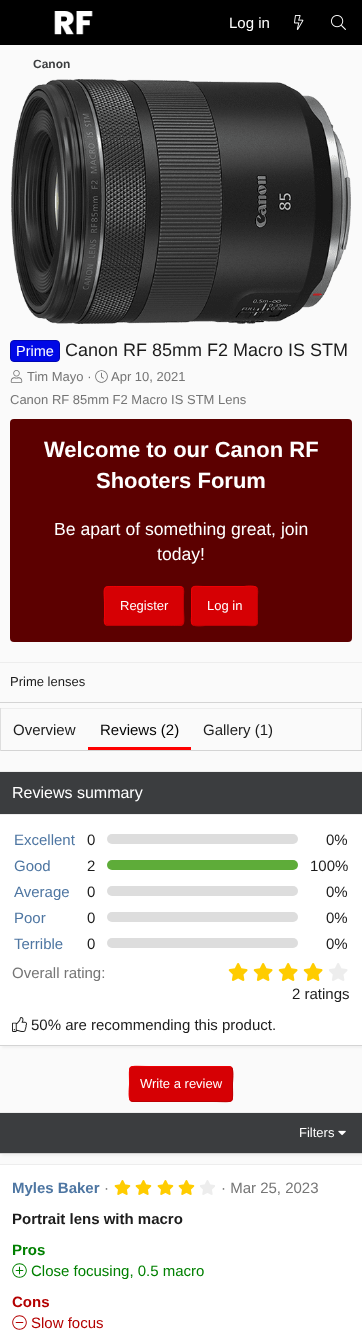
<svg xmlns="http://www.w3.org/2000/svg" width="362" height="1339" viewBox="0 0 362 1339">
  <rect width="100%" height="100%" fill="#fafafa"/>
  <path d="M0 0h362v45H0z" fill="#000"/>
  <image x="54" y="11" width="39" height="24" href="img/1.png"/>
  <image x="294" y="15" width="10" height="15" href="img/2.png"/>
  <image x="331" y="15" width="15" height="15" href="img/3.png"/>
  <image x="11" y="79" width="340" height="245" href="img/4.png"/>
  <rect x="10.5" y="340.5" width="49" height="21" rx="3.5" fill="#0008e6" stroke="#0006b3"/>
  <image x="10" y="370" width="13" height="13" href="img/5.png"/>
  <image x="95" y="370" width="13" height="13" href="img/6.png"/>
  <rect x="10" y="419" width="342" height="223" rx="4" fill="#5c0000"/>
  <rect x="104" y="586" width="80" height="40" rx="4" fill="#d60004"/>
  <path d="M182.5 587.5C184.5 589.5 183.5 593.5 183.5 595.5V606C183.5 627 188 625.5 168 625.5H108L105.5 624.5" fill="none" stroke="#bd0003"/>
  <path d="M105.5 624.5C103.5 622.5 104.5 618.5 104.5 616.5V606C104.5 585 100 586.5 120 586.5H180L182.5 587.5" fill="none" stroke="#f00004"/>
  <rect x="191" y="586" width="67" height="40" rx="4" fill="#d60004"/>
  <path d="M256.5 587.5C258.5 589.5 257.5 593.5 257.5 595.5V616.5C257.5 628 256.5 625.5 244 625.5H205C205 625.5 195 627 192.5 624.5" fill="none" stroke="#bd0003"/>
  <path d="M192.5 624.5C190.5 622.5 191.5 618.5 191.5 616.5V595.5C191.5 584 192.5 586.5 205 586.5H244C244 586.5 254 585 256.5 587.5" fill="none" stroke="#f00004"/>
  <path d="M0 662h362v1H0z" fill="#ededed"/>
  <path d="M0 702h362v1H0z" fill="#d4d4d4"/>
  <path d="M0 708h362v1H0z" fill="#ededed"/>
  <path d="M361 708h1v43H361z" fill="#dedede"/>
  <path d="M0 750h362v1H0z" fill="#d4d4d4"/>
  <path d="M0 708h1v43H0z" fill="#dedede"/>
  <path d="M88 747h103v3H88z" fill="#f00"/>
  <path d="M2 773h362v275H2z" fill="#0000000a" filter="blur(1px)"/>
  <path d="M0 815h362v230H0z" fill="#fff"/>
  <path d="M0 771h362v1H0z" fill="#ededed"/>
  <path d="M0 1045h362v1H0z" fill="#d4d4d4"/>
  <path d="M0 772h362v42H0z" fill="#3b3d3f"/>
  <path d="M0 814h362v1H0z" fill="#ededed"/>
  <rect x="107" y="834" width="191" height="10" rx="5" fill="#ddd"/>
  <rect x="107" y="860" width="191" height="10" rx="5" fill="#5eac39"/>
  <rect x="107" y="886" width="191" height="10" rx="5" fill="#ddd"/>
  <rect x="107" y="912" width="191" height="10" rx="5" fill="#ddd"/>
  <rect x="107" y="938" width="191" height="10" rx="5" fill="#ddd"/>
  <image x="228" y="963" width="20" height="18" href="img/7.png"/>
  <image x="253" y="963" width="20" height="18" href="img/7.png"/>
  <image x="278" y="963" width="20" height="18" href="img/7.png"/>
  <image x="303" y="963" width="20" height="18" href="img/7.png"/>
  <image x="329" y="963" width="19" height="18" href="img/8.png"/>
  <image x="12" y="1017" width="15" height="15" href="img/9.png"/>
  <rect x="129" y="1066" width="104" height="36" rx="4" fill="#d60004"/>
  <path d="M231.5 1067.5C234 1070 232.5 1081 232.5 1084C232.5 1105 235.5 1101.5 213 1101.5H133L130.5 1100.5" fill="none" stroke="#bd0003"/>
  <path d="M130.5 1100.5C128 1098 129.5 1087 129.5 1084C129.5 1063 126.5 1066.5 149 1066.5H229L231.5 1067.5" fill="none" stroke="#f00004"/>
  <path d="M2 1114h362v42H2z" fill="#0000000a" filter="blur(1px)"/>
  <path d="M0 1113h362v40H0z" fill="#3b3d3f"/>
  <path d="M0 1112h362v1H0z" fill="#ededed"/>
  <path d="M0 1153h362v1H0z" fill="#d4d4d4"/>
  <image x="338" y="1130" width="8" height="6" href="img/10.png"/>
  <path d="M0 1165h362v174H0z" fill="#fff"/>
  <path d="M0 1164h362v1H0z" fill="#ededed"/>
  <image x="114" y="1180" width="17" height="15" href="img/11.png"/>
  <image x="135" y="1180" width="17" height="15" href="img/11.png"/>
  <image x="157" y="1180" width="17" height="15" href="img/11.png"/>
  <image x="178" y="1180" width="17" height="15" href="img/11.png"/>
  <image x="200" y="1180" width="15" height="15" href="img/12.png"/>
  <image x="12" y="1263" width="15" height="15" href="img/13.png"/>
  <image x="12" y="1315" width="15" height="15" href="img/14.png"/>
  <text x="229" y="28" font-family="Liberation Sans" font-size="15" fill="#fff">Log in</text>
  <text x="33" y="68" font-family="Liberation Sans" font-size="12" font-weight="bold" fill="#3b3d3f">Canon</text>
  <text x="16" y="356" font-family="Liberation Sans" font-size="14.5" fill="#fff">Prime</text>
  <text x="65" y="356" font-family="Liberation Sans" font-size="18" fill="#1c1c1c">Canon RF 85mm F2 Macro IS STM</text>
  <g font-family="Liberation Sans" font-size="13" fill="#757575">
    <text x="27" y="381">Tim Mayo ·</text>
    <text x="111" y="381">Apr 10, 2021</text>
    <text x="10" y="404">Canon RF 85mm F2 Macro IS STM Lens</text>
  </g>
  <g font-family="Liberation Sans" font-size="22" font-weight="bold" fill="#fff">
    <text x="44" y="457">Welcome to our Canon RF</text>
    <text x="96" y="488">Shooters Forum</text>
  </g>
  <g font-family="Liberation Sans" font-size="17.6" fill="#fff">
    <text x="54" y="535">Be apart of something great, join</text>
    <text x="157" y="560">today!</text>
  </g>
  <g font-family="Liberation Sans" font-size="13" fill="#fff">
    <text x="120" y="610">Register</text>
    <text x="207" y="610">Log in</text>
  </g>
  <text x="10" y="686" font-family="Liberation Sans" font-size="13" fill="#1c1c1c">Prime lenses</text>
  <text x="13" y="735" font-family="Liberation Sans" font-size="15" fill="#1c1c1c">Overview</text>
  <text x="100" y="735" font-family="Liberation Sans" font-size="15" fill="#030303">Reviews (2)</text>
  <text x="203" y="735" font-family="Liberation Sans" font-size="15" fill="#1c1c1c">Gallery (1)</text>
  <text x="12" y="798" font-family="Liberation Sans" font-size="16" fill="#fff">Reviews summary</text>
  <text x="14" y="845" font-family="Liberation Sans" font-size="15" fill="#4e76a2">Excellent</text>
  <g font-family="Liberation Sans" font-size="15" fill="#1c1c1c">
    <text x="87" y="845">0</text>
    <text x="326" y="845">0%</text>
  </g>
  <text x="14" y="871" font-family="Liberation Sans" font-size="15" fill="#4e76a2">Good</text>
  <g font-family="Liberation Sans" font-size="15" fill="#1c1c1c">
    <text x="87" y="871">2</text>
    <text x="310" y="871">100%</text>
  </g>
  <text x="14" y="897" font-family="Liberation Sans" font-size="15" fill="#4e76a2">Average</text>
  <g font-family="Liberation Sans" font-size="15" fill="#1c1c1c">
    <text x="87" y="897">0</text>
    <text x="326" y="897">0%</text>
  </g>
  <text x="14" y="923" font-family="Liberation Sans" font-size="15" fill="#4e76a2">Poor</text>
  <g font-family="Liberation Sans" font-size="15" fill="#1c1c1c">
    <text x="87" y="923">0</text>
    <text x="326" y="923">0%</text>
  </g>
  <text x="14" y="949" font-family="Liberation Sans" font-size="15" fill="#4e76a2">Terrible</text>
  <g font-family="Liberation Sans" font-size="15" fill="#1c1c1c">
    <text x="87" y="949">0</text>
    <text x="326" y="949">0%</text>
  </g>
  <text x="12" y="978" font-family="Liberation Sans" font-size="15" fill="#757575">Overall rating:</text>
  <g font-family="Liberation Sans" font-size="15" fill="#1c1c1c">
    <text x="292" y="999">2 ratings</text>
    <text x="31" y="1030">50% are recommending this product.</text>
  </g>
  <g font-family="Liberation Sans" font-size="13" fill="#fff">
    <text x="140" y="1088">Write a review</text>
    <text x="299" y="1137">Filters</text>
  </g>
  <text x="12" y="1193" font-family="Liberation Sans" font-size="15" font-weight="bold" fill="#4e76a2">Myles Baker</text>
  <g font-family="Liberation Sans" font-size="15" fill="#757575">
    <text x="104" y="1193">·</text>
    <text x="221" y="1193">· Mar 25, 2023</text>
  </g>
  <text x="12" y="1224" font-family="Liberation Sans" font-size="15" font-weight="bold" fill="#1c1c1c">Portrait lens with macro</text>
  <text x="12" y="1255" font-family="Liberation Sans" font-size="15" font-weight="bold" fill="#008000">Pros</text>
  <text x="31" y="1276" font-family="Liberation Sans" font-size="15" fill="#008000">Close focusing, 0.5 macro</text>
  <text x="12" y="1307" font-family="Liberation Sans" font-size="15" font-weight="bold" fill="#b40000">Cons</text>
  <text x="31" y="1328" font-family="Liberation Sans" font-size="15" fill="#b40000">Slow focus</text>
</svg>
